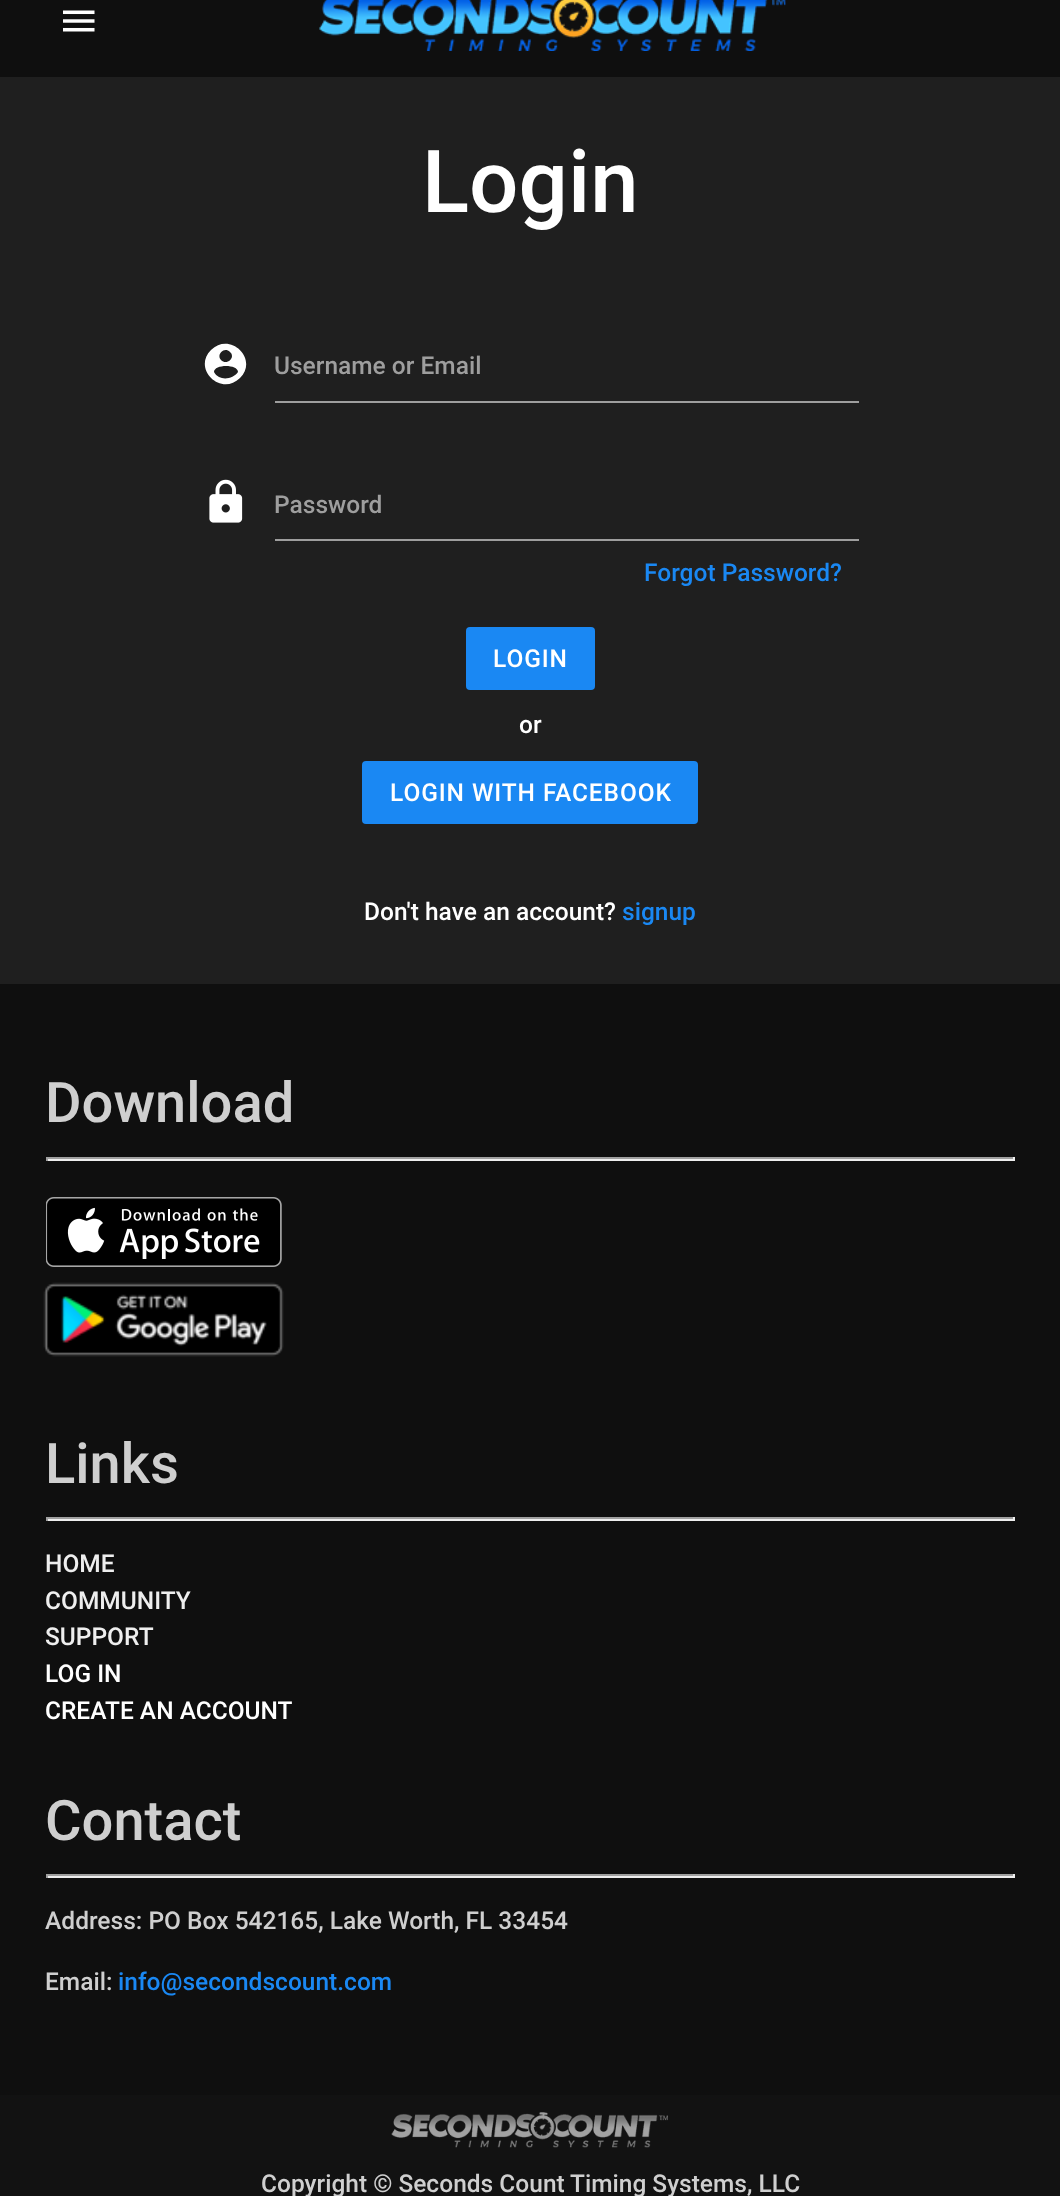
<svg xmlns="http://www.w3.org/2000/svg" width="1060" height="2196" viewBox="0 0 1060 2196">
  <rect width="100%" height="100%" fill="#1f1f1f"/>
  <path d="M0 0h1060v77H0z" fill="#0f0f0f"/>
  <image x="63" y="10" width="32" height="22" href="img/1.png"/>
  <image x="319" y="0" width="467" height="51" href="img/2.png"/>
  <path d="M219 377C225 380 234 378 238 372C238 364 214 364 214 372C215 374 217 376 219 377ZM230 352C224 346 216 355 221 360C227 366 236 357 230 352ZM211 350C230 331 259 359 240 378C221 397 192 369 211 350Z" fill="#fff"/>
  <path d="M275 401h584v2H275z" fill="#9e9e9e"/>
  <image x="209" y="479" width="34" height="44" href="img/3.png"/>
  <path d="M275 539h584v2H275z" fill="#9e9e9e"/>
  <rect x="466" y="627" width="129" height="63" rx="4" fill="#1a88f3"/>
  <rect x="362" y="761" width="336" height="63" rx="4" fill="#1a88f3"/>
  <path d="M0 984h1060v1111H0z" fill="#0f0f0f"/>
  <path d="M46 1157h969v2H46z" fill="#9f9f9f"/>
  <path d="M1013 1157h2v4H1013z" fill="#eee"/>
  <path d="M46 1159h969v2H46z" fill="#eee"/>
  <path d="M46 1157h2v4H46z" fill="#9f9f9f"/>
  <image x="46" y="1197" width="236" height="70" href="img/4.png"/>
  <image x="43" y="1282" width="241" height="75" href="img/5.png"/>
  <path d="M46 1517h969v2H46z" fill="#9f9f9f"/>
  <path d="M1013 1517h2v4H1013z" fill="#eee"/>
  <path d="M46 1519h969v2H46z" fill="#eee"/>
  <path d="M46 1517h2v4H46z" fill="#9f9f9f"/>
  <path d="M46 1874h969v2H46z" fill="#9f9f9f"/>
  <path d="M1013 1874h2v4H1013z" fill="#eee"/>
  <path d="M46 1876h969v2H46z" fill="#eee"/>
  <path d="M46 1874h2v4H46z" fill="#9f9f9f"/>
  <path d="M0 2095h1060v101H0z" fill="#121212"/>
  <image x="391" y="2112" width="277" height="36" href="img/6.png"/>
  <text x="422" y="212" font-family="Roboto" font-size="87" font-weight="500" fill="#fff">Login</text>
  <g font-family="Roboto" font-size="24.5" font-weight="500" fill="#9e9e9e">
    <text x="274" y="374">Username or Email</text>
    <text x="274" y="513">Password</text>
  </g>
  <text x="644" y="581" font-family="Roboto" font-size="24.5" font-weight="500" fill="#1a88f3">Forgot Password?</text>
  <text x="493" y="667" font-family="Roboto" font-size="24.5" font-weight="500" letter-spacing="0.9" fill="#fff">LOGIN</text>
  <text x="519" y="733" font-family="Roboto" font-size="24.5" font-weight="500" fill="#fff">or</text>
  <text x="390" y="801" font-family="Roboto" font-size="24.5" font-weight="500" letter-spacing="0.9" fill="#fff">LOGIN WITH FACEBOOK</text>
  <text x="364" y="920" font-family="Roboto" font-size="24.5" font-weight="500" fill="#fff">Don't have an account?</text>
  <text x="622" y="920" font-family="Roboto" font-size="24.5" font-weight="500" fill="#1a88f3">signup</text>
  <g font-family="Roboto" font-size="56" font-weight="500" fill="#cfcfcf">
    <text x="45" y="1122">Download</text>
    <text x="45" y="1483">Links</text>
  </g>
  <g font-family="Roboto" font-size="24.5" font-weight="500" fill="#eee">
    <text x="45" y="1572">HOME</text>
    <text x="45" y="1609">COMMUNITY</text>
    <text x="45" y="1645">SUPPORT</text>
  </g>
  <g font-family="Roboto" font-size="24.5" font-weight="500" fill="#fff">
    <text x="45" y="1682">LOG IN</text>
    <text x="45" y="1719">CREATE AN ACCOUNT</text>
  </g>
  <text x="45" y="1840" font-family="Roboto" font-size="56" font-weight="500" fill="#cfcfcf">Contact</text>
  <g font-family="Roboto" font-size="24.5" font-weight="500" fill="#cfcfcf">
    <text x="45" y="1929">Address: PO Box 542165, Lake Worth, FL 33454</text>
    <text x="45" y="1990">Email:</text>
  </g>
  <text x="118" y="1990" font-family="Roboto" font-size="24.5" font-weight="500" fill="#1a88f3">info@secondscount.com</text>
  <text x="261" y="2192" font-family="Roboto" font-size="24.5" font-weight="500" fill="#cfcfcf">Copyright © Seconds Count Timing Systems, LLC</text>
</svg>
